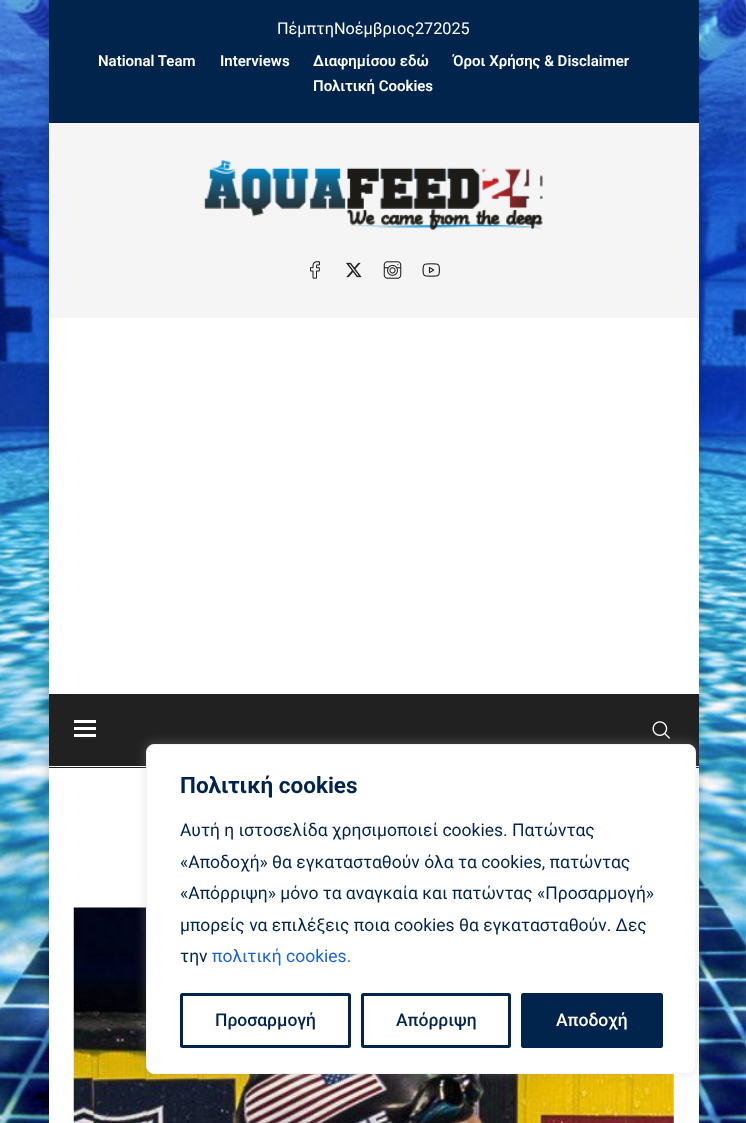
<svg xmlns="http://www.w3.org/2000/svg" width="746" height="1123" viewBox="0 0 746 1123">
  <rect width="100%" height="100%" fill="#fff"/>
  <image x="0" y="0" width="746" height="1123" href="img/1.png"/>
  <path d="M49 6h650v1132H49z" fill="#00000033" filter="blur(5px)"/>
  <path d="M49 318h650v805H49z" fill="#fff"/>
  <path d="M49 0h650v123H49z" fill="#01244d"/>
  <path d="M49 123h650v195H49z" fill="#f5f5f5"/>
  <image x="203" y="160" width="340" height="70" href="img/2.png"/>
  <image x="310" y="261" width="10" height="18" href="img/3.png"/>
  <image x="346" y="262" width="16" height="16" href="img/4.png"/>
  <image x="383" y="261" width="19" height="18" href="img/5.png"/>
  <image x="422" y="263" width="18" height="14" href="img/6.png"/>
  <path d="M49 694h650v74H49z" fill="#212121"/>
  <path d="M49 766h650v1H49z" fill="#fff"/>
  <path d="M74 720h22v3H74z" fill="#fff"/>
  <path d="M74 727h22v3H74z" fill="#fff"/>
  <path d="M74 734h22v3H74z" fill="#fff"/>
  <image x="652" y="721" width="18" height="18" href="img/7.png"/>
  <image x="73" y="907" width="601" height="216" href="img/8.png"/>
  <rect x="146" y="743" width="550" height="330" rx="8" fill="#acabab4d" filter="blur(6px)"/>
  <rect x="146.5" y="744.5" width="549" height="329" rx="7.5" fill="#fff" stroke="#f4f4f4"/>
  <rect x="181.5" y="994.5" width="168" height="52" rx="1" fill="none" stroke="#01244d" stroke-width="3"/>
  <rect x="362.5" y="994.5" width="147" height="52" rx="1" fill="none" stroke="#01244d" stroke-width="3"/>
  <rect x="522.5" y="994.5" width="139" height="52" rx="1" fill="#01244d" stroke="#01244d" stroke-width="3"/>
  <text x="277" y="34" font-family="Roboto" font-size="16.25" fill="#fff">ΠέμπτηΝοέμβριος272025</text>
  <g font-family="Roboto" font-size="15" font-weight="600" fill="#fff">
    <text x="98" y="66">National Team</text>
    <text x="220" y="66">Interviews</text>
    <text x="313" y="66">Διαφημίσου εδώ</text>
    <text x="453" y="66">Όροι Χρήσης &amp; Disclaimer</text>
    <text x="313" y="91">Πολιτική Cookies</text>
  </g>
  <text x="180" y="793" font-family="Roboto" font-size="22.5" font-weight="bold" fill="#01244d">Πολιτική cookies</text>
  <g font-family="Roboto" font-size="17.5" fill="#01244d">
    <text x="180" y="836">Αυτή η ιστοσελίδα χρησιμοποιεί cookies. Πατώντας</text>
    <text x="180" y="868">«Αποδοχή» θα εγκατασταθούν όλα τα cookies, πατώντας</text>
    <text x="180" y="899">«Απόρριψη» μόνο τα αναγκαία και πατώντας «Προσαρμογή»</text>
    <text x="180" y="931">μπορείς να επιλέξεις ποια cookies θα εγκατασταθούν. Δες</text>
    <text x="180" y="962">την</text>
  </g>
  <text x="212" y="962" font-family="Roboto" font-size="17.5" fill="#1863dc">πολιτική cookies.</text>
  <g font-family="Roboto" font-size="17.5" font-weight="500" fill="#01244d">
    <text x="215" y="1026">Προσαρμογή</text>
    <text x="396" y="1026">Απόρριψη</text>
  </g>
  <text x="556" y="1026" font-family="Roboto" font-size="17.5" font-weight="500" fill="#fff">Αποδοχή</text>
</svg>
